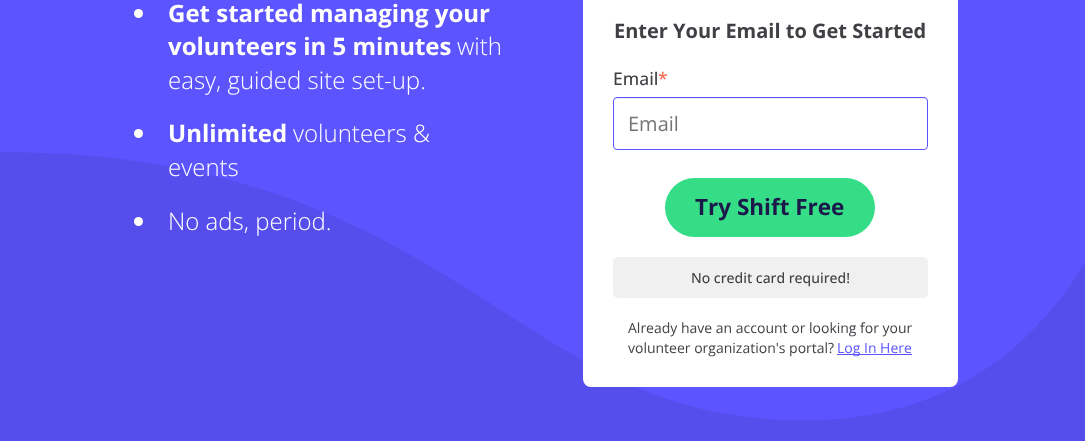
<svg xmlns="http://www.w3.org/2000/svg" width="1085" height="441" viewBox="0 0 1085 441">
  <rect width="100%" height="100%" fill="#5c54ff"/>
  <circle cx="138.5" cy="13.5" r="4.5" fill="#fff"/>
  <circle cx="138.5" cy="133.5" r="4.5" fill="#fff"/>
  <path d="M0 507V152C413 152 508 379 727 414C922 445 1026 359 1085 263V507Z" fill="#554eec"/>
  <circle cx="138.5" cy="221.5" r="4.5" fill="#fff"/>
  <rect x="583" y="-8" width="375" height="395" rx="8" fill="#fff"/>
  <path d="M617 99H924C926 99 927 100 927 102L926 99L925 98H617C615 98 614 100 614 102C614 100 615 99 617 99Z" fill="#ececec"/>
  <rect x="613.5" y="97.5" width="314" height="52" rx="3.5" fill="none" stroke="#5c54ff"/>
  <rect x="665" y="178" width="210" height="59" rx="29.5" fill="#35dd87"/>
  <rect x="613" y="257" width="315" height="41" rx="5" fill="#f0f0f0"/>
  <path d="M837 354h75v1H837z" fill="#5c54ff"/>
  <g font-family="Open Sans" font-size="24" font-weight="bold" fill="#fff">
    <text x="168" y="22">Get started managing your</text>
    <text x="168" y="55">volunteers in 5 minutes</text>
  </g>
  <g font-family="Open Sans" font-size="24" font-weight="300" fill="#fff">
    <text x="457" y="55">with</text>
    <text x="168" y="89">easy, guided site set-up.</text>
  </g>
  <text x="168" y="142" font-family="Open Sans" font-size="24" font-weight="bold" fill="#fff">Unlimited</text>
  <g font-family="Open Sans" font-size="24" font-weight="300" fill="#fff">
    <text x="293" y="142">volunteers &amp;</text>
    <text x="168" y="176">events</text>
    <text x="168" y="230">No ads, period.</text>
  </g>
  <text x="614" y="38" font-family="Open Sans" font-size="20" font-weight="bold" fill="#403f44">Enter Your Email to Get Started</text>
  <text x="613" y="85" font-family="Open Sans" font-size="17.5" font-weight="500" fill="#403f44">Email</text>
  <text x="658" y="85" font-family="Open Sans" font-size="17.5" font-weight="500" fill="#ef6b51">*</text>
  <text x="628" y="131" font-family="Open Sans" font-size="20" fill="#757575">Email</text>
  <text x="695" y="215" font-family="Open Sans" font-size="22.5" font-weight="bold" fill="#1b194a">Try Shift Free</text>
  <text x="691" y="283" font-family="Open Sans" font-size="14" font-weight="500" fill="#403f44">No credit card required!</text>
  <g font-family="Open Sans" font-size="14" fill="#403f44">
    <text x="628" y="333">Already have an account or looking for your</text>
    <text x="628" y="353">volunteer organization's portal?</text>
  </g>
  <text x="837" y="353" font-family="Open Sans" font-size="14" fill="#5c54ff">Log In Here</text>
</svg>
